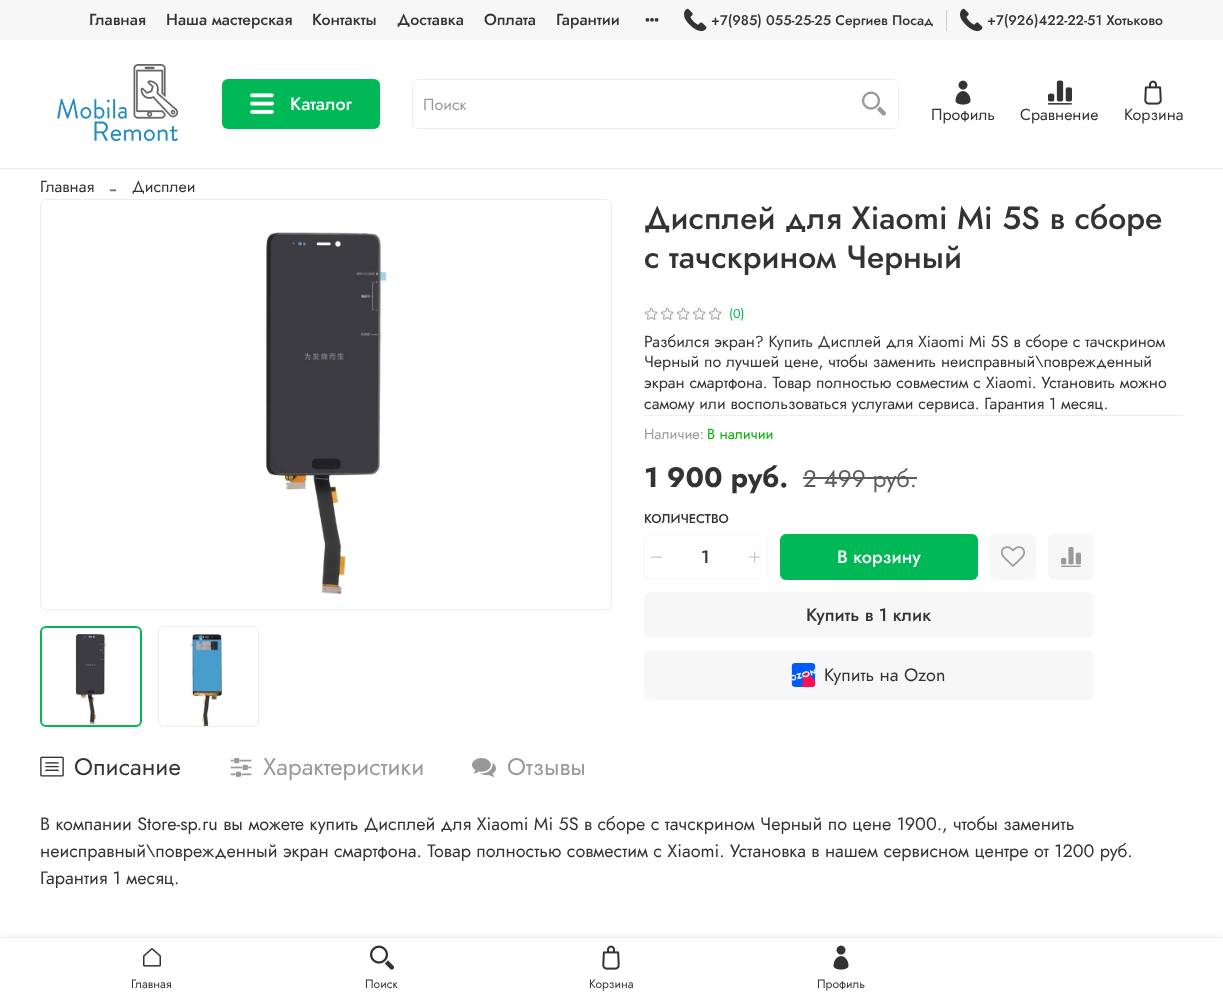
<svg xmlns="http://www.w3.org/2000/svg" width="1223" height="999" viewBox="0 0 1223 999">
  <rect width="100%" height="100%" fill="#fff"/>
  <path d="M0 0h1223v40H0z" fill="#f7f7f7"/>
  <image x="645" y="18" width="14" height="4" href="img/1.png"/>
  <path d="M946 10h1v21H946z" fill="#ccc"/>
  <image x="684" y="8" width="23" height="24" href="img/2.png"/>
  <image x="960" y="8" width="23" height="24" href="img/2.png"/>
  <path d="M0 168h1223v1H0z" fill="#ededed"/>
  <image x="57" y="64" width="121" height="77" href="img/3.png"/>
  <rect x="222" y="79" width="158" height="50" rx="6" fill="#00b956"/>
  <image x="250" y="93" width="24" height="21" href="img/4.png"/>
  <path d="M418 79H849V129H418C415 129 412 126 412 123V85C412 82 415 79 418 79ZM418 80H849V128H418C415 128 413 126 413 123V85C413 82 415 80 418 80Z" fill="#ededed" fill-rule="evenodd"/>
  <path d="M849 79H893C896 79 899 82 899 85V123C899 126 896 129 893 129H849ZM849 80H893C896 80 898 82 898 85V123C898 126 896 128 893 128H849Z" fill="#ededed" fill-rule="evenodd"/>
  <image x="862" y="91" width="24" height="25" href="img/5.png"/>
  <image x="955" y="80" width="16" height="25" href="img/6.png"/>
  <image x="1047" y="80" width="25" height="25" href="img/7.png"/>
  <image x="1144" y="80" width="18" height="25" href="img/8.png"/>
  <rect x="40.5" y="199.5" width="571" height="410" rx="5.5" fill="none" stroke="#ededed"/>
  <image x="265" y="232" width="122" height="363" href="img/9.png"/>
  <image x="75" y="633" width="32" height="92" href="img/10.png"/>
  <rect x="41" y="627" width="100" height="99" rx="5" fill="none" stroke="#00b956" stroke-width="2"/>
  <image x="190" y="634" width="32" height="92" href="img/11.png"/>
  <rect x="158.5" y="626.5" width="100" height="100" rx="5.5" fill="none" stroke="#ededed"/>
  <image x="645" y="307" width="13" height="13" href="img/12.png"/>
  <image x="661" y="307" width="13" height="13" href="img/12.png"/>
  <image x="677" y="307" width="13" height="13" href="img/12.png"/>
  <image x="693" y="307" width="13" height="13" href="img/12.png"/>
  <image x="709" y="307" width="13" height="13" href="img/12.png"/>
  <path d="M644 415h539v1H644z" fill="#ededed"/>
  <path d="M803 477h114v2H803z" fill="#5c5c5c"/>
  <rect x="644.5" y="534.5" width="123" height="45" rx="5.5" fill="none" stroke="#f7f7f7"/>
  <image x="651" y="556" width="11" height="2" href="img/13.png"/>
  <image x="749" y="551" width="11" height="12" href="img/14.png"/>
  <rect x="780" y="534" width="198" height="46" rx="6" fill="#00b956"/>
  <rect x="990" y="534" width="46" height="46" rx="6" fill="#f7f7f7"/>
  <image x="1001" y="546" width="24" height="21" href="img/15.png"/>
  <rect x="1048" y="534" width="46" height="46" rx="6" fill="#f7f7f7"/>
  <image x="1060" y="547" width="21" height="20" href="img/16.png"/>
  <rect x="644" y="592" width="450" height="46" rx="6" fill="#f7f7f7"/>
  <rect x="644" y="650" width="450" height="50" rx="6" fill="#f7f7f7"/>
  <image x="791" y="663" width="25" height="24" href="img/17.png"/>
  <image x="40" y="756" width="24" height="21" href="img/18.png"/>
  <image x="230" y="758" width="22" height="19" href="img/19.png"/>
  <image x="472" y="758" width="24" height="19" href="img/20.png"/>
  <path d="M0 939h1223v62H0z" fill="#0000001f" filter="blur(5px)"/>
  <path d="M0 938h1223v61H0z" fill="#fff"/>
  <path d="M0 937h1223v1H0z" fill="#ededed"/>
  <image x="143" y="948" width="18" height="19" href="img/21.png"/>
  <image x="370" y="945" width="24" height="25" href="img/22.png"/>
  <image x="602" y="945" width="18" height="25" href="img/8.png"/>
  <image x="833" y="945" width="16" height="25" href="img/6.png"/>
  <g font-family="Jost" font-size="16" font-weight="500" fill="#333">
    <text x="89" y="25">Главная</text>
    <text x="166" y="25">Наша мастерская</text>
    <text x="312" y="25">Контакты</text>
    <text x="397" y="25">Доставка</text>
    <text x="484" y="25">Оплата</text>
    <text x="556" y="25">Гарантии</text>
  </g>
  <g font-family="Jost" font-size="14" font-weight="500" fill="#333">
    <text x="711" y="25">+7(985) 055-25-25 Сергиев Посад</text>
    <text x="987" y="25">+7(926)422-22-51 Хотьково</text>
  </g>
  <text x="290" y="110" font-family="Jost" font-size="18" font-weight="500" fill="#fff">Каталог</text>
  <text x="423" y="110" font-family="Jost" font-size="16" fill="#999">Поиск</text>
  <g font-family="Jost" font-size="16" fill="#333">
    <text x="931" y="120">Профиль</text>
    <text x="1020" y="120">Сравнение</text>
    <text x="1124" y="120">Корзина</text>
    <text x="40" y="192">Главная</text>
  </g>
  <text x="109" y="196" font-family="Liberation Serif" font-size="24" fill="#707070">-</text>
  <text x="132" y="192" font-family="Jost" font-size="16" fill="#333">Дисплеи</text>
  <g font-family="Jost" font-size="32" font-weight="500" fill="#333">
    <text x="644" y="229">Дисплей для Xiaomi Mi 5S в сборе</text>
    <text x="644" y="268">с тачскрином Черный</text>
  </g>
  <text x="729" y="318" font-family="Jost" font-size="12.75" fill="#00b956">(0)</text>
  <g font-family="Jost" font-size="16" fill="#333">
    <text x="644" y="347">Разбился экран? Купить Дисплей для Xiaomi Mi 5S в сборе с тачскрином</text>
    <text x="644" y="367">Черный по лучшей цене, чтобы заменить неисправный\поврежденный</text>
    <text x="644" y="388">экран смартфона. Товар полностью совместим с Xiaomi. Установить можно</text>
    <text x="644" y="409">самому или воспользоваться услугами сервиса. Гарантия 1 месяц.</text>
  </g>
  <text x="644" y="439" font-family="Jost" font-size="14.5" fill="#999">Наличие:</text>
  <text x="707" y="439" font-family="Jost" font-size="14.5" fill="#00b200">В наличии</text>
  <text x="644" y="487" font-family="Jost" font-size="28" font-weight="bold" fill="#333">1 900 руб.</text>
  <text x="803" y="487" font-family="Jost" font-size="24" fill="#5c5c5c">2 499 руб.</text>
  <text x="644" y="523" font-family="Jost" font-size="12.75" font-weight="500" fill="#333">КОЛИЧЕСТВО</text>
  <text x="701" y="563" font-family="Jost" font-size="18" font-weight="500" fill="#333">1</text>
  <text x="837" y="563" font-family="Jost" font-size="18" font-weight="500" fill="#fff">В корзину</text>
  <text x="806" y="621" font-family="Jost" font-size="18" font-weight="500" fill="#333">Купить в 1 клик</text>
  <text x="824" y="681" font-family="Jost" font-size="18" fill="#333">Купить на Ozon</text>
  <text x="74" y="775" font-family="Jost" font-size="24" fill="#333">Описание</text>
  <g font-family="Jost" font-size="24" fill="#999">
    <text x="263" y="775">Характеристики</text>
    <text x="507" y="775">Отзывы</text>
  </g>
  <g font-family="Jost" font-size="18" fill="#333">
    <text x="40" y="830">В компании Store-sp.ru вы можете купить Дисплей для Xiaomi Mi 5S в сборе с тачскрином Черный по цене 1900., чтобы заменить</text>
    <text x="40" y="857">неисправный\поврежденный экран смартфона. Товар полностью совместим с Xiaomi. Установка в нашем сервисном центре от 1200 руб.</text>
    <text x="40" y="884">Гарантия 1 месяц.</text>
  </g>
  <g font-family="Jost" font-size="12" fill="#333">
    <text x="131" y="988">Главная</text>
    <text x="365" y="988">Поиск</text>
    <text x="589" y="988">Корзина</text>
    <text x="817" y="988">Профиль</text>
  </g>
</svg>
